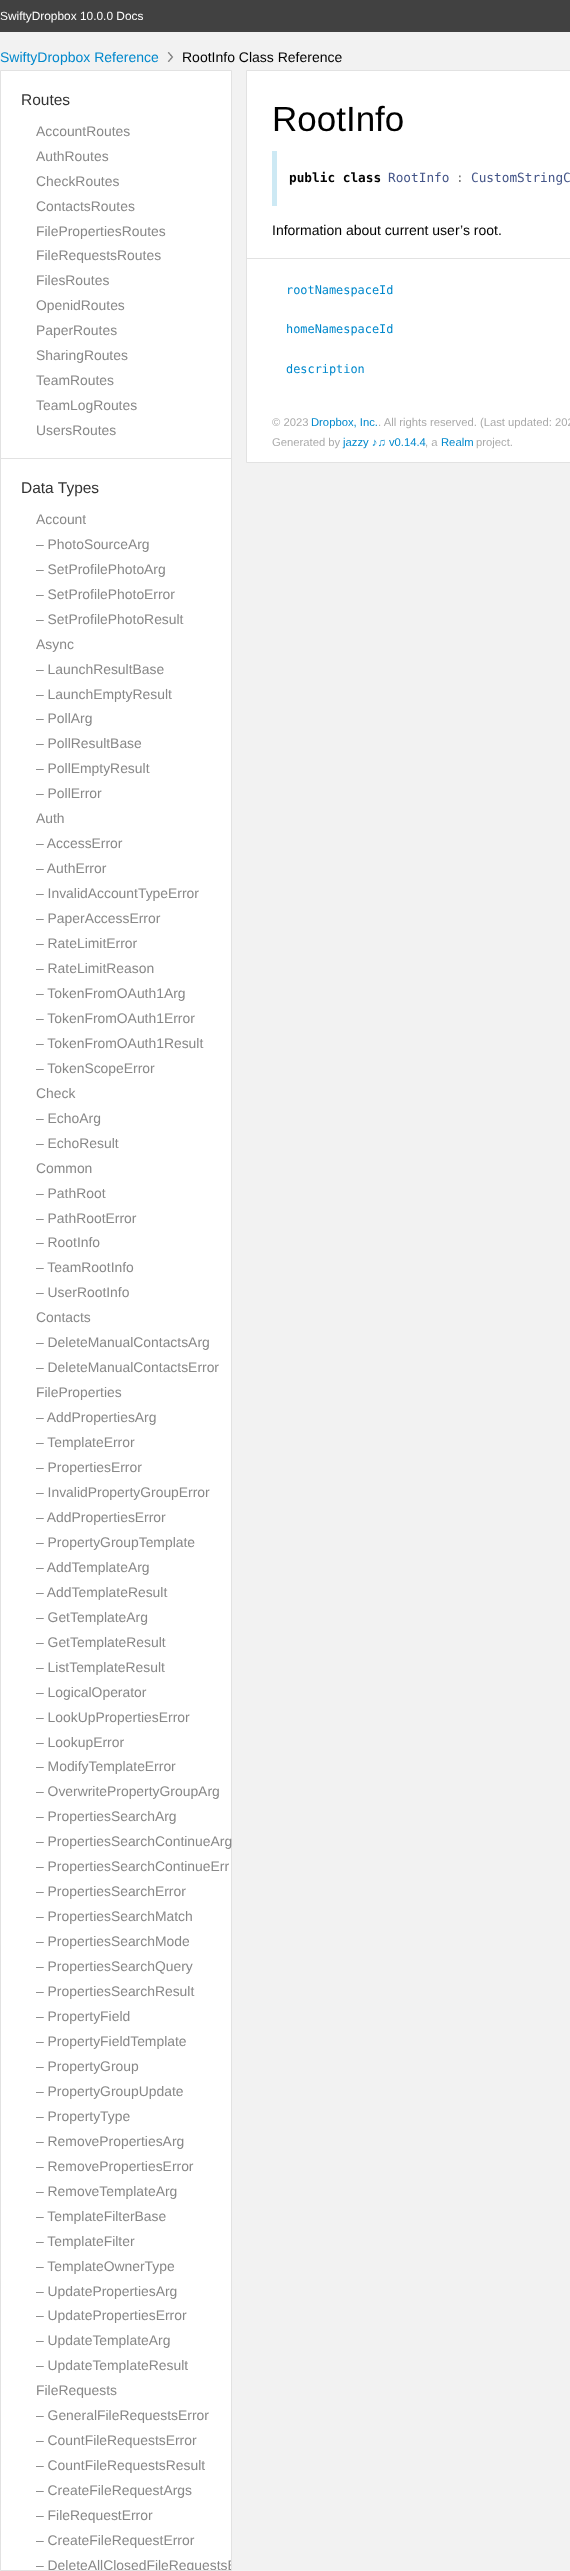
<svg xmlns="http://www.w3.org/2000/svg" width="570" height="2571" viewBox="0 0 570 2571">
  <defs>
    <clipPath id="clip1"><path d="M1 71h230v2499H1z"/></clipPath>
  </defs>
  <rect width="100%" height="100%" fill="#f2f2f2"/>
  <path d="M0 0h570v32H0z" fill="#414141"/>
  <image x="167" y="52" width="7" height="10" href="img/1.png"/>
  <path d="M0.5 70.5h231v2500H0.5z" fill="none" stroke="#e2e2e2"/>
  <path d="M1 71h230v2499H1z" fill="#fff"/>
  <path d="M1 458h230v1H1z" fill="#e2e2e2"/>
  <path d="M246.5 70.5h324v392H246.5z" fill="#fff" stroke="#e2e2e2"/>
  <path d="M272 151h5v55H272z" fill="#cde9f4"/>
  <path d="M247 258h323v1H247z" fill="#e2e2e2"/>
  <text x="0" y="20" font-family="Liberation Sans" font-size="11.9" fill="#fff">SwiftyDropbox 10.0.0 Docs</text>
  <text x="0" y="62" font-family="Liberation Sans" font-size="14" fill="#08c">SwiftyDropbox Reference</text>
  <text x="182" y="62" font-family="Liberation Sans" font-size="14" fill="#000">RootInfo Class Reference</text>
  <text x="21" y="105" font-family="Liberation Sans" font-size="15.5" fill="#333">Routes</text>
  <g font-family="Liberation Sans" font-size="13.9" fill="#888">
    <text x="36" y="136">AccountRoutes</text>
    <text x="36" y="161">AuthRoutes</text>
    <text x="36" y="186">CheckRoutes</text>
    <text x="36" y="211">ContactsRoutes</text>
    <text x="36" y="236">FilePropertiesRoutes</text>
    <text x="36" y="260">FileRequestsRoutes</text>
    <text x="36" y="285">FilesRoutes</text>
    <text x="36" y="310">OpenidRoutes</text>
    <text x="36" y="335">PaperRoutes</text>
    <text x="36" y="360">SharingRoutes</text>
    <text x="36" y="385">TeamRoutes</text>
    <text x="36" y="410">TeamLogRoutes</text>
    <text x="36" y="435">UsersRoutes</text>
  </g>
  <text x="21" y="493" font-family="Liberation Sans" font-size="15.5" fill="#333">Data Types</text>
  <g font-family="Liberation Sans" font-size="13.9" fill="#888">
    <text x="36" y="524">Account</text>
    <text x="36" y="549">– PhotoSourceArg</text>
    <text x="36" y="574">– SetProfilePhotoArg</text>
    <text x="36" y="599">– SetProfilePhotoError</text>
    <text x="36" y="624">– SetProfilePhotoResult</text>
    <text x="36" y="649">Async</text>
    <text x="36" y="674">– LaunchResultBase</text>
    <text x="36" y="699">– LaunchEmptyResult</text>
    <text x="36" y="723">– PollArg</text>
    <text x="36" y="748">– PollResultBase</text>
    <text x="36" y="773">– PollEmptyResult</text>
    <text x="36" y="798">– PollError</text>
    <text x="36" y="823">Auth</text>
    <text x="36" y="848">– AccessError</text>
    <text x="36" y="873">– AuthError</text>
    <text x="36" y="898">– InvalidAccountTypeError</text>
    <text x="36" y="923">– PaperAccessError</text>
    <text x="36" y="948">– RateLimitError</text>
    <text x="36" y="973">– RateLimitReason</text>
    <text x="36" y="998">– TokenFromOAuth1Arg</text>
    <text x="36" y="1023">– TokenFromOAuth1Error</text>
    <text x="36" y="1048">– TokenFromOAuth1Result</text>
    <text x="36" y="1073">– TokenScopeError</text>
    <text x="36" y="1098">Check</text>
    <text x="36" y="1123">– EchoArg</text>
    <text x="36" y="1148">– EchoResult</text>
    <text x="36" y="1173">Common</text>
    <text x="36" y="1198">– PathRoot</text>
    <text x="36" y="1223">– PathRootError</text>
    <text x="36" y="1247">– RootInfo</text>
    <text x="36" y="1272">– TeamRootInfo</text>
    <text x="36" y="1297">– UserRootInfo</text>
    <text x="36" y="1322">Contacts</text>
    <text x="36" y="1347">– DeleteManualContactsArg</text>
    <text x="36" y="1372">– DeleteManualContactsError</text>
    <text x="36" y="1397">FileProperties</text>
    <text x="36" y="1422">– AddPropertiesArg</text>
    <text x="36" y="1447">– TemplateError</text>
    <text x="36" y="1472">– PropertiesError</text>
    <text x="36" y="1497">– InvalidPropertyGroupError</text>
    <text x="36" y="1522">– AddPropertiesError</text>
    <text x="36" y="1547">– PropertyGroupTemplate</text>
    <text x="36" y="1572">– AddTemplateArg</text>
    <text x="36" y="1597">– AddTemplateResult</text>
    <text x="36" y="1622">– GetTemplateArg</text>
    <text x="36" y="1647">– GetTemplateResult</text>
    <text x="36" y="1672">– ListTemplateResult</text>
    <text x="36" y="1697">– LogicalOperator</text>
    <text x="36" y="1722">– LookUpPropertiesError</text>
    <text x="36" y="1747">– LookupError</text>
    <text x="36" y="1771">– ModifyTemplateError</text>
    <text x="36" y="1796">– OverwritePropertyGroupArg</text>
    <text x="36" y="1821">– PropertiesSearchArg</text>
    <text x="36" y="1846">– PropertiesSearchContinueArg</text>
    <text x="36" y="1871">– PropertiesSearchContinueErr</text>
    <text x="36" y="1896">– PropertiesSearchError</text>
    <text x="36" y="1921">– PropertiesSearchMatch</text>
    <text x="36" y="1946">– PropertiesSearchMode</text>
    <text x="36" y="1971">– PropertiesSearchQuery</text>
    <text x="36" y="1996">– PropertiesSearchResult</text>
    <text x="36" y="2021">– PropertyField</text>
    <text x="36" y="2046">– PropertyFieldTemplate</text>
    <text x="36" y="2071">– PropertyGroup</text>
    <text x="36" y="2096">– PropertyGroupUpdate</text>
    <text x="36" y="2121">– PropertyType</text>
    <text x="36" y="2146">– RemovePropertiesArg</text>
    <text x="36" y="2171">– RemovePropertiesError</text>
    <text x="36" y="2196">– RemoveTemplateArg</text>
    <text x="36" y="2221">– TemplateFilterBase</text>
    <text x="36" y="2246">– TemplateFilter</text>
    <text x="36" y="2271">– TemplateOwnerType</text>
    <text x="36" y="2296">– UpdatePropertiesArg</text>
    <text x="36" y="2320">– UpdatePropertiesError</text>
    <text x="36" y="2345">– UpdateTemplateArg</text>
    <text x="36" y="2370">– UpdateTemplateResult</text>
    <text x="36" y="2395">FileRequests</text>
    <text x="36" y="2420">– GeneralFileRequestsError</text>
    <text x="36" y="2445">– CountFileRequestsError</text>
    <text x="36" y="2470">– CountFileRequestsResult</text>
    <text x="36" y="2495">– CreateFileRequestArgs</text>
    <text x="36" y="2520">– FileRequestError</text>
    <text x="36" y="2545">– CreateFileRequestError</text>
  </g>
  <g clip-path="url(#clip1)">
    <text x="36" y="2570" font-family="Liberation Sans" font-size="13.9" fill="#888">– DeleteAllClosedFileRequestsE</text>
  </g>
  <text x="272" y="131" font-family="Liberation Sans" font-size="35" fill="#000">RootInfo</text>
  <text x="289" y="182" font-family="DejaVu Sans Mono" font-size="12.75" font-weight="bold" fill="#000">public class</text>
  <text x="388" y="182" font-family="DejaVu Sans Mono" font-size="12.75" fill="#458">RootInfo</text>
  <text x="456" y="182" font-family="DejaVu Sans Mono" font-size="12.75" fill="#777">:</text>
  <text x="471" y="182" font-family="DejaVu Sans Mono" font-size="12.75" fill="#458">CustomStringC</text>
  <text x="272" y="235" font-family="Liberation Sans" font-size="14" fill="#000">Information about current user’s root.</text>
  <g font-family="DejaVu Sans Mono" font-size="11.9" fill="#08c">
    <text x="286" y="294">rootNamespaceId</text>
    <text x="286" y="333">homeNamespaceId</text>
    <text x="286" y="373">description</text>
  </g>
  <text x="272" y="426" font-family="Liberation Sans" font-size="11.25" fill="#aaa">© 2023</text>
  <text x="311" y="426" font-family="Liberation Sans" font-size="11.25" fill="#08c">Dropbox, Inc.</text>
  <g font-family="Liberation Sans" font-size="11.25" fill="#aaa">
    <text x="378" y="426">. All rights reserved. (Last updated: 202</text>
    <text x="272" y="446">Generated by</text>
  </g>
  <text x="343" y="446" font-family="Liberation Sans" font-size="11.25" fill="#08c">jazzy ♪♫ v0.14.4</text>
  <text x="425" y="446" font-family="Liberation Sans" font-size="11.25" fill="#aaa">, a</text>
  <text x="441" y="446" font-family="Liberation Sans" font-size="11.25" fill="#08c">Realm</text>
  <text x="476" y="446" font-family="Liberation Sans" font-size="11.25" fill="#aaa">project.</text>
</svg>
